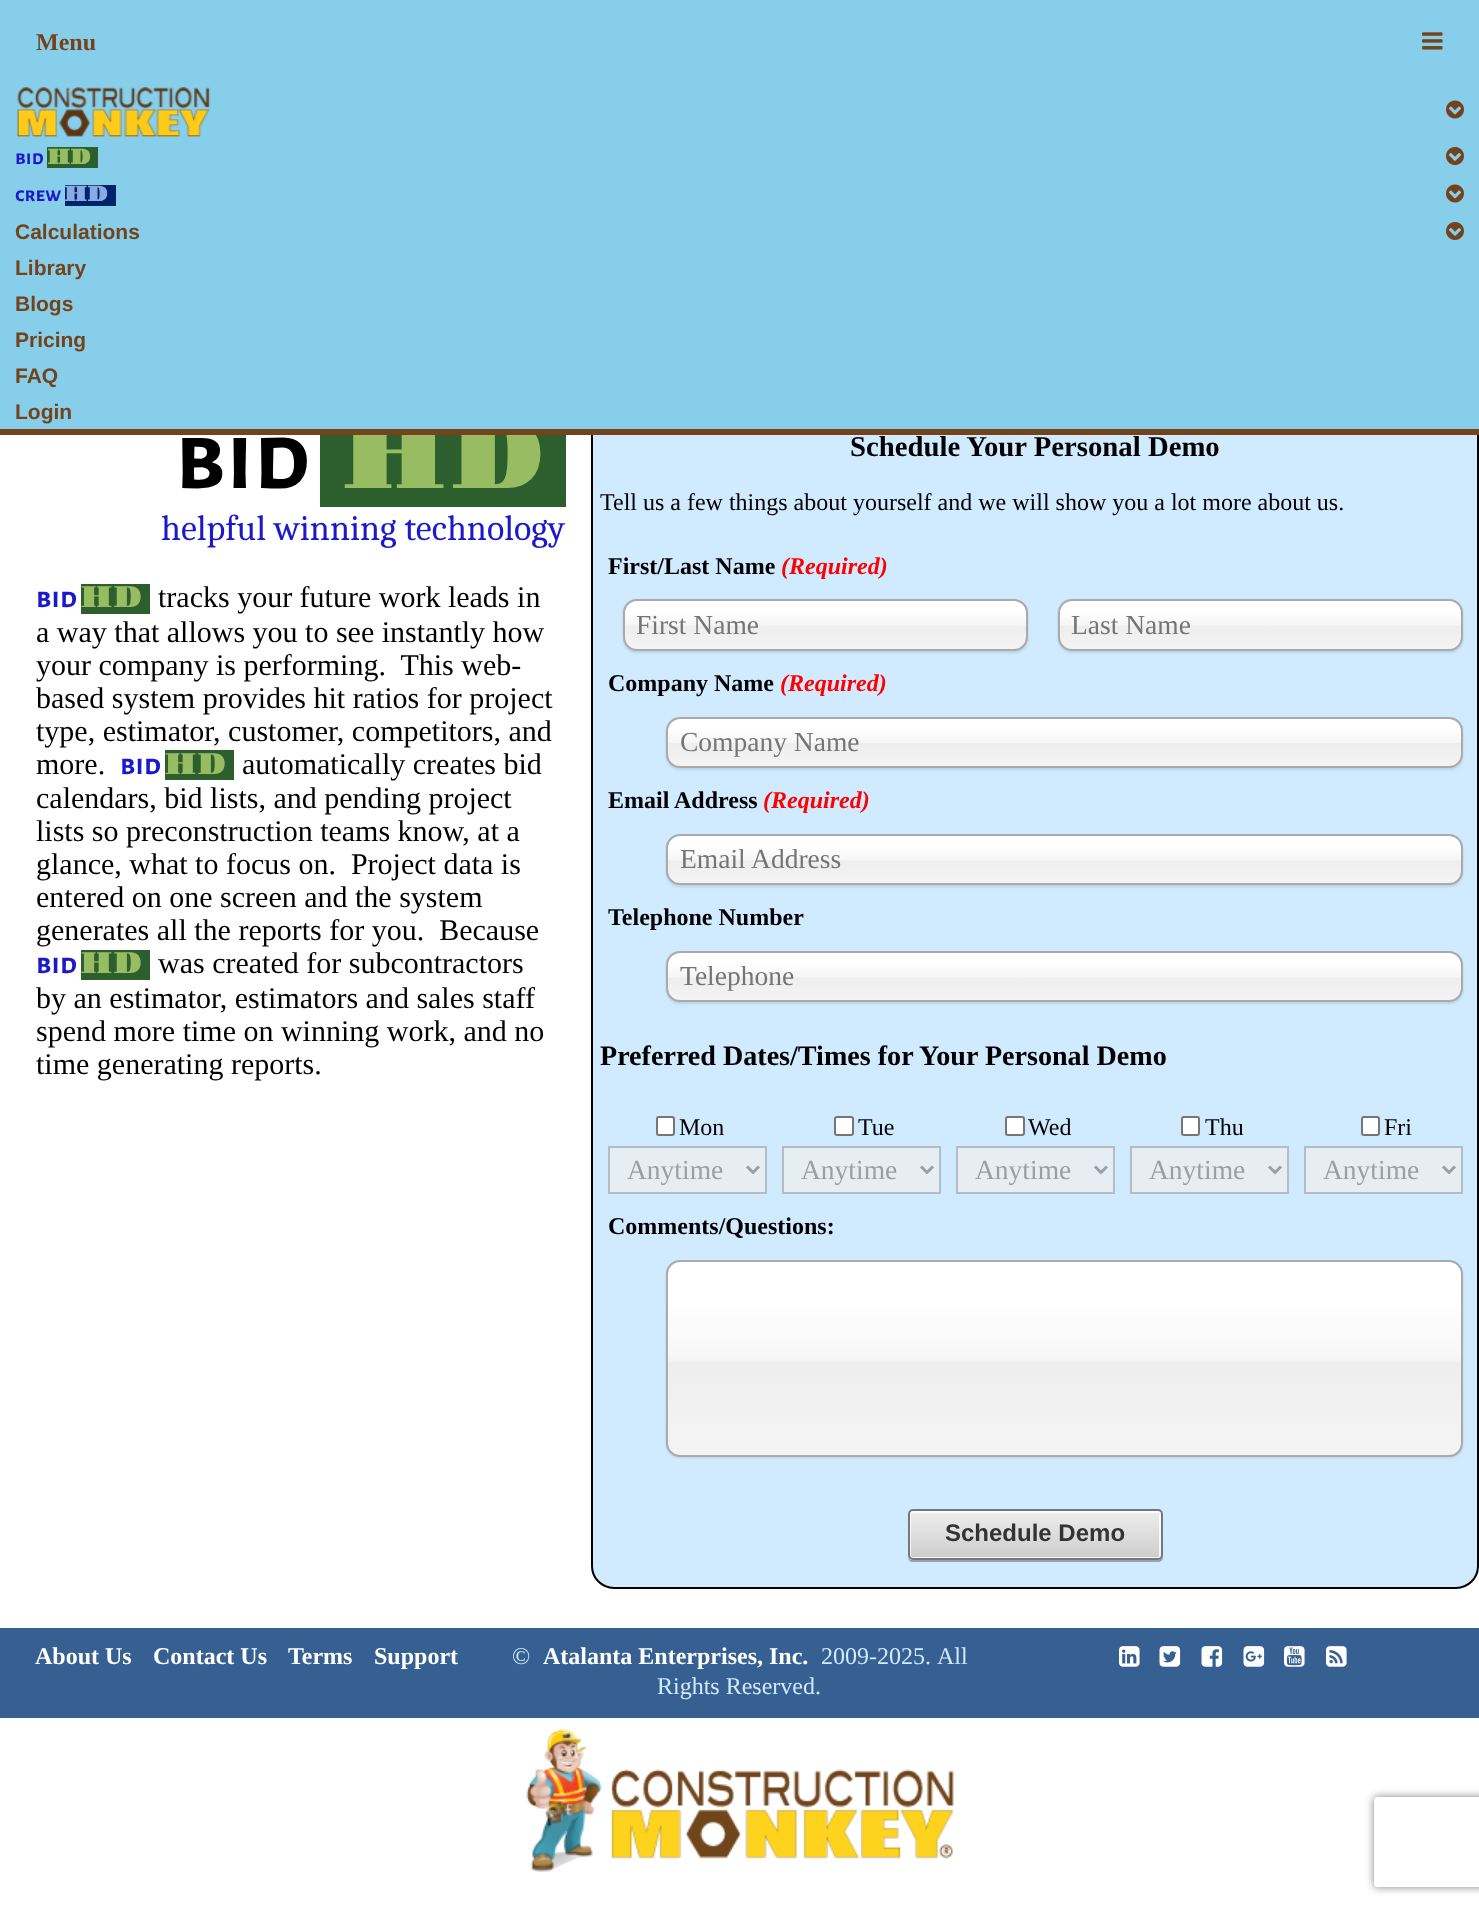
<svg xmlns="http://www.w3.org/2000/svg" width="1479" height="1907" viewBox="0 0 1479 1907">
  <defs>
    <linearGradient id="g1" gradientUnits="userSpaceOnUse" x1="825" y1="600" x2="825" y2="650"><stop offset="0.2" stop-color="#fff"/><stop offset="0.5" stop-color="#f6f6f6"/><stop offset="0.52" stop-color="#eee"/><stop offset="1" stop-color="#f4f4f4"/></linearGradient>
    <linearGradient id="g2" gradientUnits="userSpaceOnUse" x1="1260" y1="600" x2="1260" y2="650"><stop offset="0.2" stop-color="#fff"/><stop offset="0.5" stop-color="#f6f6f6"/><stop offset="0.52" stop-color="#eee"/><stop offset="1" stop-color="#f4f4f4"/></linearGradient>
    <linearGradient id="g3" gradientUnits="userSpaceOnUse" x1="1064" y1="718" x2="1064" y2="767"><stop offset="0.2" stop-color="#fff"/><stop offset="0.5" stop-color="#f6f6f6"/><stop offset="0.52" stop-color="#eee"/><stop offset="1" stop-color="#f4f4f4"/></linearGradient>
    <linearGradient id="g4" gradientUnits="userSpaceOnUse" x1="1064" y1="836" x2="1064" y2="884"><stop offset="0.2" stop-color="#fff"/><stop offset="0.5" stop-color="#f6f6f6"/><stop offset="0.52" stop-color="#eee"/><stop offset="1" stop-color="#f4f4f4"/></linearGradient>
    <linearGradient id="g5" gradientUnits="userSpaceOnUse" x1="1064" y1="953" x2="1064" y2="1001"><stop offset="0.2" stop-color="#fff"/><stop offset="0.5" stop-color="#f6f6f6"/><stop offset="0.52" stop-color="#eee"/><stop offset="1" stop-color="#f4f4f4"/></linearGradient>
    <linearGradient id="g6" gradientUnits="userSpaceOnUse" x1="1064" y1="1262" x2="1064" y2="1455"><stop offset="0.2" stop-color="#fff"/><stop offset="0.5" stop-color="#f6f6f6"/><stop offset="0.52" stop-color="#eee"/><stop offset="1" stop-color="#f4f4f4"/></linearGradient>
    <clipPath id="clip1"><rect x="908" y="1509" width="255" height="51" rx="5"/></clipPath>
    <linearGradient id="g7" gradientUnits="userSpaceOnUse" x1="1035" y1="1511" x2="1035" y2="1559"><stop offset="0" stop-color="#eee"/><stop offset="1" stop-color="#ccc"/></linearGradient>
    <clipPath id="clip2"><path d="M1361 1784H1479V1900H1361ZM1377 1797H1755C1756.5 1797 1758 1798.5 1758 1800V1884C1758 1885.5 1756.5 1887 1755 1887H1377C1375.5 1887 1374 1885.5 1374 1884V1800C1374 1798.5 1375.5 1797 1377 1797Z" clip-rule="evenodd"/></clipPath>
  </defs>
  <rect width="100%" height="100%" fill="#fff"/>
  <path d="M320 435h246v72H320z" fill="#2c5f2d"/>
  <path d="M81 584h69v30H81z" fill="#2c5f2d"/>
  <path d="M165 750h69v30H165z" fill="#2c5f2d"/>
  <path d="M81 950h69v30H81z" fill="#2c5f2d"/>
  <rect x="592" y="402" width="886" height="1186" rx="22" fill="#d0eaff" stroke="#000" stroke-width="2"/>
  <rect x="623" y="600" width="405" height="53" rx="14" fill="#0000001a" filter="blur(1px)"/>
  <rect x="624" y="600" width="402" height="50" rx="12" fill="url(#g1)"/>
  <rect x="624" y="600" width="403" height="50" rx="13" fill="none" stroke="#aaa" stroke-width="2"/>
  <rect x="1058" y="600" width="405" height="53" rx="14" fill="#0000001a" filter="blur(1px)"/>
  <rect x="1059" y="600" width="402" height="50" rx="12" fill="url(#g2)"/>
  <rect x="1059" y="600" width="403" height="50" rx="13" fill="none" stroke="#aaa" stroke-width="2"/>
  <rect x="666" y="719" width="797" height="51" rx="14" fill="#0000001a" filter="blur(1px)"/>
  <rect x="668" y="719" width="793" height="48" rx="12" fill="url(#g3)"/>
  <rect x="667" y="718" width="795" height="49" rx="13" fill="none" stroke="#aaa" stroke-width="2"/>
  <rect x="666" y="836" width="797" height="51" rx="14" fill="#0000001a" filter="blur(1px)"/>
  <rect x="668" y="836" width="793" height="48" rx="12" fill="url(#g4)"/>
  <rect x="667" y="835" width="795" height="49" rx="13" fill="none" stroke="#aaa" stroke-width="2"/>
  <rect x="666" y="953" width="797" height="51" rx="14" fill="#0000001a" filter="blur(1px)"/>
  <rect x="668" y="953" width="793" height="48" rx="12" fill="url(#g5)"/>
  <rect x="667" y="952" width="795" height="49" rx="13" fill="none" stroke="#aaa" stroke-width="2"/>
  <rect x="657" y="1117" width="17" height="18" rx="2" fill="#fff" stroke="#767676" stroke-width="2"/>
  <path d="M609 1147h157v46H609z" fill="#e6eef4" stroke="#b5bdc4" stroke-width="2"/>
  <path d="M747 1166.5L753 1172.5L759 1166.5" fill="none" stroke="#98a0a6" stroke-width="3"/>
  <rect x="835" y="1117" width="18" height="18" rx="2" fill="#fff" stroke="#767676" stroke-width="2"/>
  <path d="M783 1147h157v46H783z" fill="#e6eef4" stroke="#b5bdc4" stroke-width="2"/>
  <path d="M921 1166.5L927 1172.5L933 1166.5" fill="none" stroke="#98a0a6" stroke-width="3"/>
  <rect x="1006" y="1117" width="18" height="18" rx="2" fill="#fff" stroke="#767676" stroke-width="2"/>
  <path d="M957 1147h157v46H957z" fill="#e6eef4" stroke="#b5bdc4" stroke-width="2"/>
  <path d="M1095 1166.5L1101 1172.5L1107 1166.5" fill="none" stroke="#98a0a6" stroke-width="3"/>
  <rect x="1182" y="1117" width="17" height="18" rx="2" fill="#fff" stroke="#767676" stroke-width="2"/>
  <path d="M1131 1147h157v46H1131z" fill="#e6eef4" stroke="#b5bdc4" stroke-width="2"/>
  <path d="M1269 1166.5L1275 1172.5L1281 1166.5" fill="none" stroke="#98a0a6" stroke-width="3"/>
  <rect x="1362" y="1117" width="17" height="18" rx="2" fill="#fff" stroke="#767676" stroke-width="2"/>
  <path d="M1305 1147h157v46H1305z" fill="#e6eef4" stroke="#b5bdc4" stroke-width="2"/>
  <path d="M1443 1166.5L1449 1172.5L1455 1166.5" fill="none" stroke="#98a0a6" stroke-width="3"/>
  <rect x="666" y="1262" width="797" height="196" rx="14" fill="#0000001a" filter="blur(1px)"/>
  <rect x="668" y="1262" width="793" height="193" rx="12" fill="url(#g6)"/>
  <rect x="667" y="1261" width="795" height="195" rx="13" fill="none" stroke="#aaa" stroke-width="2"/>
  <path d="M908 1557C908 1560 910 1562 913 1562H1158C1161 1562 1163 1560 1163 1557V1516L1162 1514V1555C1162 1558 1160 1560 1158 1560H912C910 1560 909 1559 908 1557Z" fill="#92a4b3"/>
  <g clip-path="url(#clip1)">
    <path d="M908 1511h255v48H908z" fill="url(#g7)"/>
  </g>
  <rect x="910" y="1512" width="250" height="46" rx="2" fill="none" stroke="#ffffffcc" stroke-width="2"/>
  <rect x="909" y="1510" width="253" height="49" rx="4" fill="none" stroke="#777" stroke-width="2"/>
  <path d="M0 1628h1479v90H0z" fill="#376092"/>
  <image x="1119" y="1646" width="21" height="21" href="img/5.png"/>
  <image x="1159" y="1646" width="22" height="21" href="img/6.png"/>
  <image x="1201" y="1646" width="22" height="21" href="img/7.png"/>
  <image x="1243" y="1646" width="22" height="21" href="img/8.png"/>
  <image x="1284" y="1646" width="21" height="21" href="img/9.png"/>
  <image x="1326" y="1646" width="21" height="21" href="img/10.png"/>
  <image x="526" y="1728" width="428" height="144" href="img/11.png"/>
  <g clip-path="url(#clip2)">
    <rect x="1374" y="1797" width="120" height="90" rx="3" fill="#808080" filter="blur(4px)"/>
  </g>
  <text x="175" y="488" font-family="Alegreya Sans SC" font-size="99" font-weight="bold" fill="#000">bid</text>
  <text x="340" y="488" font-family="Gravitas One" font-size="99" fill="#97bc62">HD</text>
  <path d="M0 0h1479v429H0z" fill="#87ceeb"/>
  <g font-family="Liberation Sans" font-size="21" font-weight="bold" fill="#74421b">
    <text x="15" y="419">Login</text>
    <text x="15" y="383">FAQ</text>
    <text x="15" y="347">Pricing</text>
    <text x="15" y="311">Blogs</text>
    <text x="15" y="275">Library</text>
  </g>
  <image x="1446" y="222" width="18" height="18" href="img/4.png"/>
  <text x="15" y="239" font-family="Liberation Sans" font-size="21" font-weight="bold" fill="#74421b">Calculations</text>
  <image x="1446" y="184" width="18" height="19" href="img/3.png"/>
  <path d="M65 185h51v21H65z" fill="#00246b"/>
  <text x="64" y="201" font-family="Gravitas One" font-size="21" font-weight="bold" fill="#8aaae5">HD</text>
  <text x="15" y="201" font-family="Alegreya Sans SC" font-size="21" font-weight="bold" fill="#1b19cb">crew</text>
  <image x="1446" y="147" width="18" height="18" href="img/4.png"/>
  <path d="M47 147h51v21H47z" fill="#2c5f2d"/>
  <text x="47" y="164" font-family="Gravitas One" font-size="21" font-weight="bold" fill="#97bc62">HD</text>
  <text x="15" y="164" font-family="Alegreya Sans SC" font-size="21" font-weight="bold" fill="#1b19cb">bid</text>
  <image x="1446" y="100" width="18" height="19" href="img/3.png"/>
  <image x="17" y="87" width="194" height="50" href="img/2.png"/>
  <text x="36" y="50" font-family="Liberation Serif" font-size="24" font-weight="bold" fill="#74421b">Menu</text>
  <image x="1422" y="32" width="21" height="18" href="img/1.png"/>
  <path d="M0 429h1479v6H0z" fill="#74421b"/>
  <text x="161" y="540" font-family="Caladea" font-size="36" fill="#1b19cb">helpful winning technology</text>
  <text x="36" y="607" font-family="Alegreya Sans SC" font-size="30" font-weight="bold" fill="#1b19cb">bid</text>
  <text x="80" y="607" font-family="Gravitas One" font-size="30" fill="#97bc62">HD</text>
  <g font-family="Liberation Serif" font-size="30" fill="#000">
    <text x="158" y="607">tracks your future work leads in</text>
    <text x="36" y="642">a way that allows you to see instantly how</text>
    <text x="36" y="675" xml:space="preserve">your company is performing.  This web-</text>
    <text x="36" y="708">based system provides hit ratios for project</text>
    <text x="36" y="741">type, estimator, customer, competitors, and</text>
    <text x="36" y="774">more.</text>
  </g>
  <text x="120" y="774" font-family="Alegreya Sans SC" font-size="30" font-weight="bold" fill="#1b19cb">bid</text>
  <text x="164" y="774" font-family="Gravitas One" font-size="30" fill="#97bc62">HD</text>
  <g font-family="Liberation Serif" font-size="30" fill="#000">
    <text x="242" y="774">automatically creates bid</text>
    <text x="36" y="808">calendars, bid lists, and pending project</text>
    <text x="36" y="841">lists so preconstruction teams know, at a</text>
    <text x="36" y="874" xml:space="preserve">glance, what to focus on.  Project data is</text>
    <text x="36" y="907">entered on one screen and the system</text>
    <text x="36" y="940" xml:space="preserve">generates all the reports for you.  Because</text>
  </g>
  <text x="36" y="973" font-family="Alegreya Sans SC" font-size="30" font-weight="bold" fill="#1b19cb">bid</text>
  <text x="80" y="973" font-family="Gravitas One" font-size="30" fill="#97bc62">HD</text>
  <g font-family="Liberation Serif" font-size="30" fill="#000">
    <text x="158" y="973">was created for subcontractors</text>
    <text x="36" y="1008">by an estimator, estimators and sales staff</text>
    <text x="36" y="1041">spend more time on winning work, and no</text>
    <text x="36" y="1074">time generating reports.</text>
  </g>
  <text x="850" y="456" font-family="Liberation Serif" font-size="28.75" font-weight="bold" fill="#000">Schedule Your Personal Demo</text>
  <text x="600" y="510" font-family="Liberation Serif" font-size="24" fill="#000">Tell us a few things about yourself and we will show you a lot more about us.</text>
  <text x="608" y="574" font-family="Liberation Serif" font-size="24" font-weight="bold" fill="#000">First/Last Name</text>
  <text x="781" y="574" font-family="Liberation Serif" font-size="24" font-weight="bold" font-style="italic" fill="#f00">(Required)</text>
  <g font-family="Liberation Serif" font-size="27.5" fill="#757575">
    <text x="636" y="634">First Name</text>
    <text x="1071" y="634">Last Name</text>
  </g>
  <text x="608" y="691" font-family="Liberation Serif" font-size="24" font-weight="bold" fill="#000">Company Name</text>
  <text x="780" y="691" font-family="Liberation Serif" font-size="24" font-weight="bold" font-style="italic" fill="#f00">(Required)</text>
  <text x="680" y="751" font-family="Liberation Serif" font-size="27.5" fill="#757575">Company Name</text>
  <text x="608" y="808" font-family="Liberation Serif" font-size="24" font-weight="bold" fill="#000">Email Address</text>
  <text x="763" y="808" font-family="Liberation Serif" font-size="24" font-weight="bold" font-style="italic" fill="#f00">(Required)</text>
  <text x="680" y="868" font-family="Liberation Serif" font-size="27.5" fill="#757575">Email Address</text>
  <text x="608" y="925" font-family="Liberation Serif" font-size="24" font-weight="bold" fill="#000">Telephone Number</text>
  <text x="680" y="985" font-family="Liberation Serif" font-size="27.5" fill="#757575">Telephone</text>
  <text x="600" y="1065" font-family="Liberation Serif" font-size="28.1" font-weight="bold" fill="#000">Preferred Dates/Times for Your Personal Demo</text>
  <text x="679" y="1135" font-family="Liberation Serif" font-size="24" fill="#000">Mon</text>
  <text x="627" y="1179" font-family="Liberation Serif" font-size="27.5" fill="#98a0a6">Anytime</text>
  <text x="858" y="1135" font-family="Liberation Serif" font-size="24" fill="#000">Tue</text>
  <text x="801" y="1179" font-family="Liberation Serif" font-size="27.5" fill="#98a0a6">Anytime</text>
  <text x="1028" y="1135" font-family="Liberation Serif" font-size="24" fill="#000">Wed</text>
  <text x="975" y="1179" font-family="Liberation Serif" font-size="27.5" fill="#98a0a6">Anytime</text>
  <text x="1205" y="1135" font-family="Liberation Serif" font-size="24" fill="#000">Thu</text>
  <text x="1149" y="1179" font-family="Liberation Serif" font-size="27.5" fill="#98a0a6">Anytime</text>
  <text x="1384" y="1135" font-family="Liberation Serif" font-size="24" fill="#000">Fri</text>
  <text x="1323" y="1179" font-family="Liberation Serif" font-size="27.5" fill="#98a0a6">Anytime</text>
  <text x="608" y="1234" font-family="Liberation Serif" font-size="24" font-weight="bold" fill="#000">Comments/Questions:</text>
  <text x="945" y="1541" font-family="Liberation Sans" font-size="24" font-weight="bold" fill="#333">Schedule Demo</text>
  <g font-family="Liberation Serif" font-size="24" font-weight="bold" fill="#fff">
    <text x="35" y="1664">About Us</text>
    <text x="153" y="1664">Contact Us</text>
    <text x="288" y="1664">Terms</text>
    <text x="374" y="1664">Support</text>
  </g>
  <text x="512" y="1664" font-family="Liberation Serif" font-size="24" fill="#d0eaff">©</text>
  <text x="543" y="1664" font-family="Liberation Serif" font-size="24" font-weight="bold" fill="#fff">Atalanta Enterprises, Inc.</text>
  <g font-family="Liberation Serif" font-size="24" fill="#d0eaff">
    <text x="821" y="1664">2009-2025.</text>
    <text x="937" y="1664">All</text>
    <text x="657" y="1694">Rights Reserved.</text>
  </g>
</svg>
